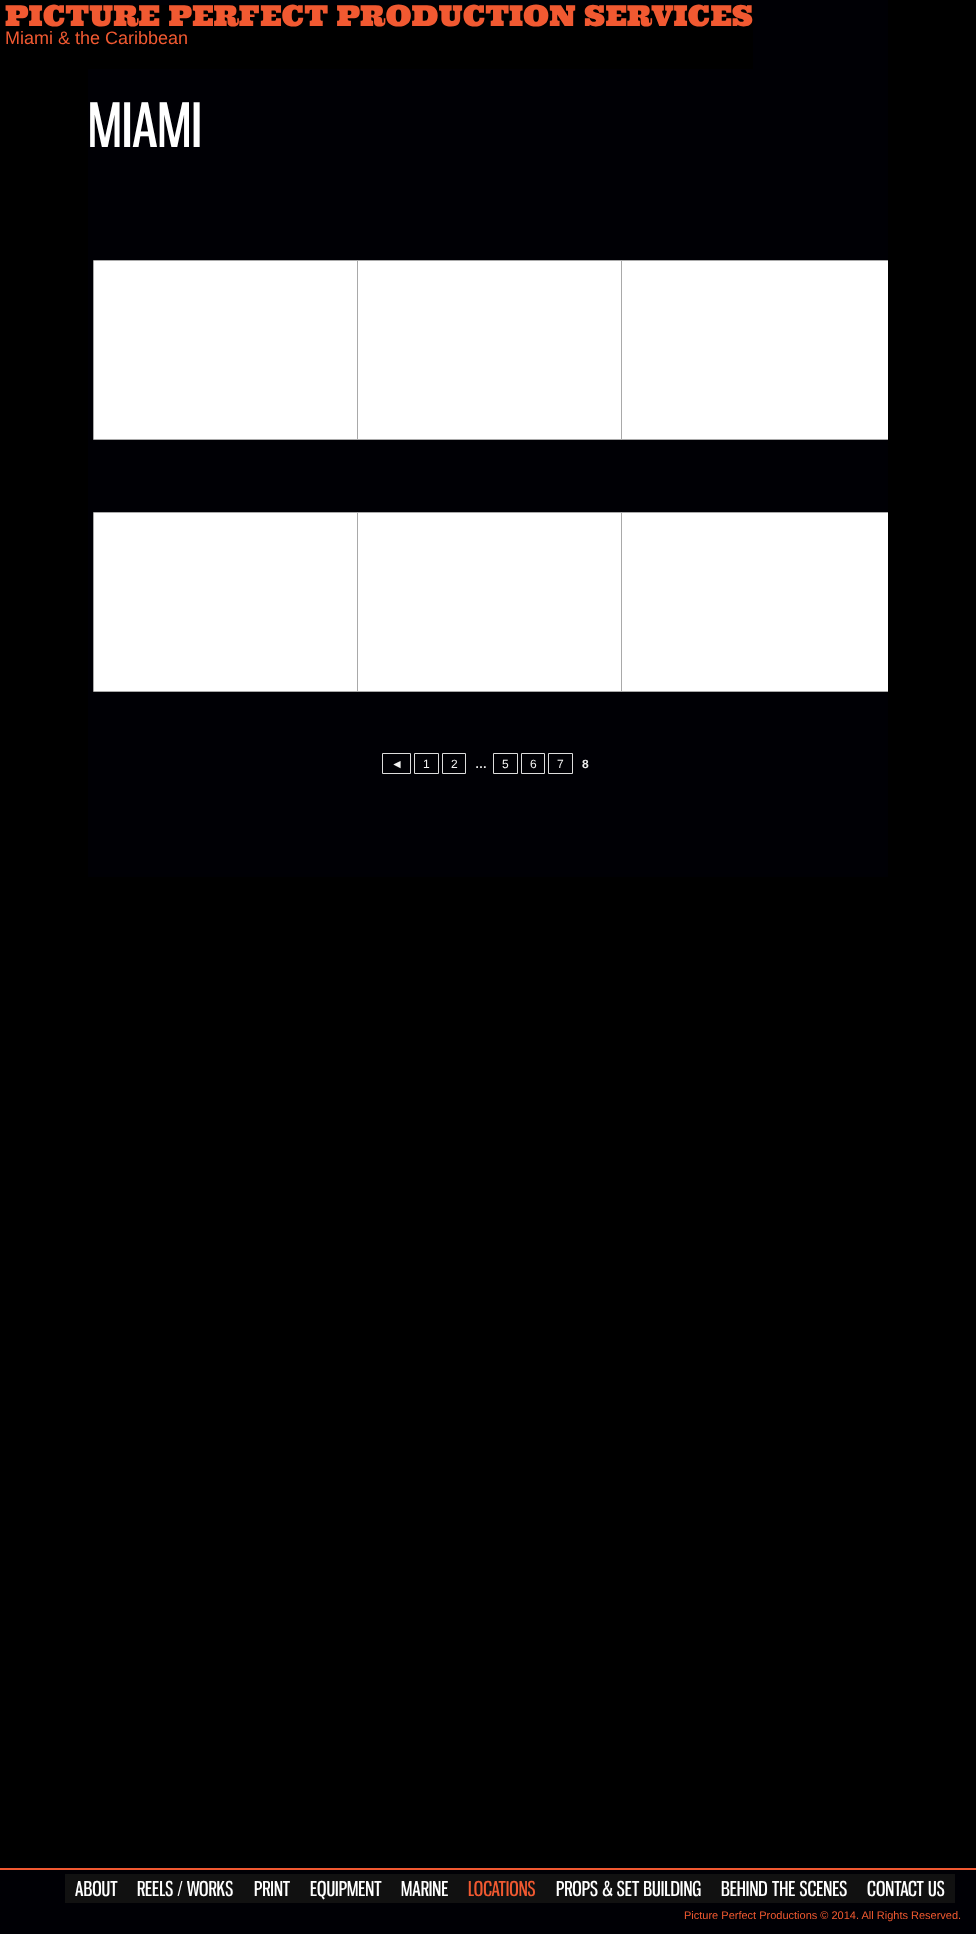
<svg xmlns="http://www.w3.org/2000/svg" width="976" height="1934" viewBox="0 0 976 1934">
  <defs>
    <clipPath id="clip1"><path d="M88 214h800v563H88z"/></clipPath>
  </defs>
  <rect width="100%" height="100%" fill="#000"/>
  <path d="M88 0h800v877H88z" fill="#000005"/>
  <path d="M88 5h665v64H88z" fill="#000"/>
  <path d="M94 261h263v178H94z" fill="#fff"/>
  <path d="M93.5 260.5h269v179H93.5z" fill="none" stroke="#a9a9a9"/>
  <path d="M358 261h263v178H358z" fill="#fff"/>
  <path d="M357.5 260.5h269v179H357.5z" fill="none" stroke="#a9a9a9"/>
  <path d="M622 261h266v178H622z" fill="#fff"/>
  <g clip-path="url(#clip1)">
    <path d="M621.5 260.5h269v179H621.5z" fill="none" stroke="#a9a9a9"/>
  </g>
  <path d="M94 513h263v178H94z" fill="#fff"/>
  <path d="M93.5 512.5h269v179H93.5z" fill="none" stroke="#a9a9a9"/>
  <path d="M358 513h263v178H358z" fill="#fff"/>
  <path d="M357.5 512.5h269v179H357.5z" fill="none" stroke="#a9a9a9"/>
  <path d="M622 513h266v178H622z" fill="#fff"/>
  <g clip-path="url(#clip1)">
    <path d="M621.5 512.5h269v179H621.5z" fill="none" stroke="#a9a9a9"/>
  </g>
  <path d="M382.5 753.5h28v20H382.5z" fill="none" stroke="#ddd"/>
  <path d="M414.5 753.5h24v20H414.5z" fill="none" stroke="#ddd"/>
  <path d="M442.5 753.5h23v20H442.5z" fill="none" stroke="#ddd"/>
  <path d="M493.5 753.5h24v20H493.5z" fill="none" stroke="#ddd"/>
  <path d="M521.5 753.5h23v20H521.5z" fill="none" stroke="#ddd"/>
  <path d="M548.5 753.5h24v20H548.5z" fill="none" stroke="#ddd"/>
  <path d="M0 1870h976v64H0z" fill="#000005"/>
  <path d="M0 1868h976v2H0z" fill="#f15931"/>
  <path d="M65 1874h890v29H65z" fill="#111"/>
  <text x="5" y="26" font-family="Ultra" font-size="29" fill="#f15931">PICTURE PERFECT PRODUCTION SERVICES</text>
  <text x="5" y="44" font-family="Liberation Sans" font-size="18" fill="#f15931">Miami &amp; the Caribbean</text>
  <text x="88" y="147" font-family="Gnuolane" font-size="60" fill="#fff">MIAMI</text>
  <g font-family="Liberation Sans" font-size="12" fill="#f3f3f3">
    <text x="391" y="768">◄</text>
    <text x="423" y="768">1</text>
    <text x="451" y="768">2</text>
  </g>
  <text x="475" y="768" font-family="Liberation Sans" font-size="12" font-weight="bold" fill="#ededed">…</text>
  <g font-family="Liberation Sans" font-size="12" fill="#f3f3f3">
    <text x="502" y="768">5</text>
    <text x="530" y="768">6</text>
    <text x="557" y="768">7</text>
  </g>
  <text x="582" y="768" font-family="Liberation Sans" font-size="12" font-weight="bold" fill="#ededed">8</text>
  <g font-family="Gnuolane" font-size="20" fill="#fff">
    <text x="75" y="1896">ABOUT</text>
    <text x="137" y="1896">REELS / WORKS</text>
    <text x="254" y="1896">PRINT</text>
    <text x="310" y="1896">EQUIPMENT</text>
    <text x="401" y="1896">MARINE</text>
  </g>
  <text x="468" y="1896" font-family="Gnuolane" font-size="20" fill="#f15931">LOCATIONS</text>
  <g font-family="Gnuolane" font-size="20" fill="#fff">
    <text x="556" y="1896">PROPS &amp; SET BUILDING</text>
    <text x="721" y="1896">BEHIND THE SCENES</text>
    <text x="867" y="1896">CONTACT US</text>
  </g>
  <text x="684" y="1919" font-family="Liberation Sans" font-size="11" fill="#f15931">Picture Perfect Productions © 2014. All Rights Reserved.</text>
</svg>
